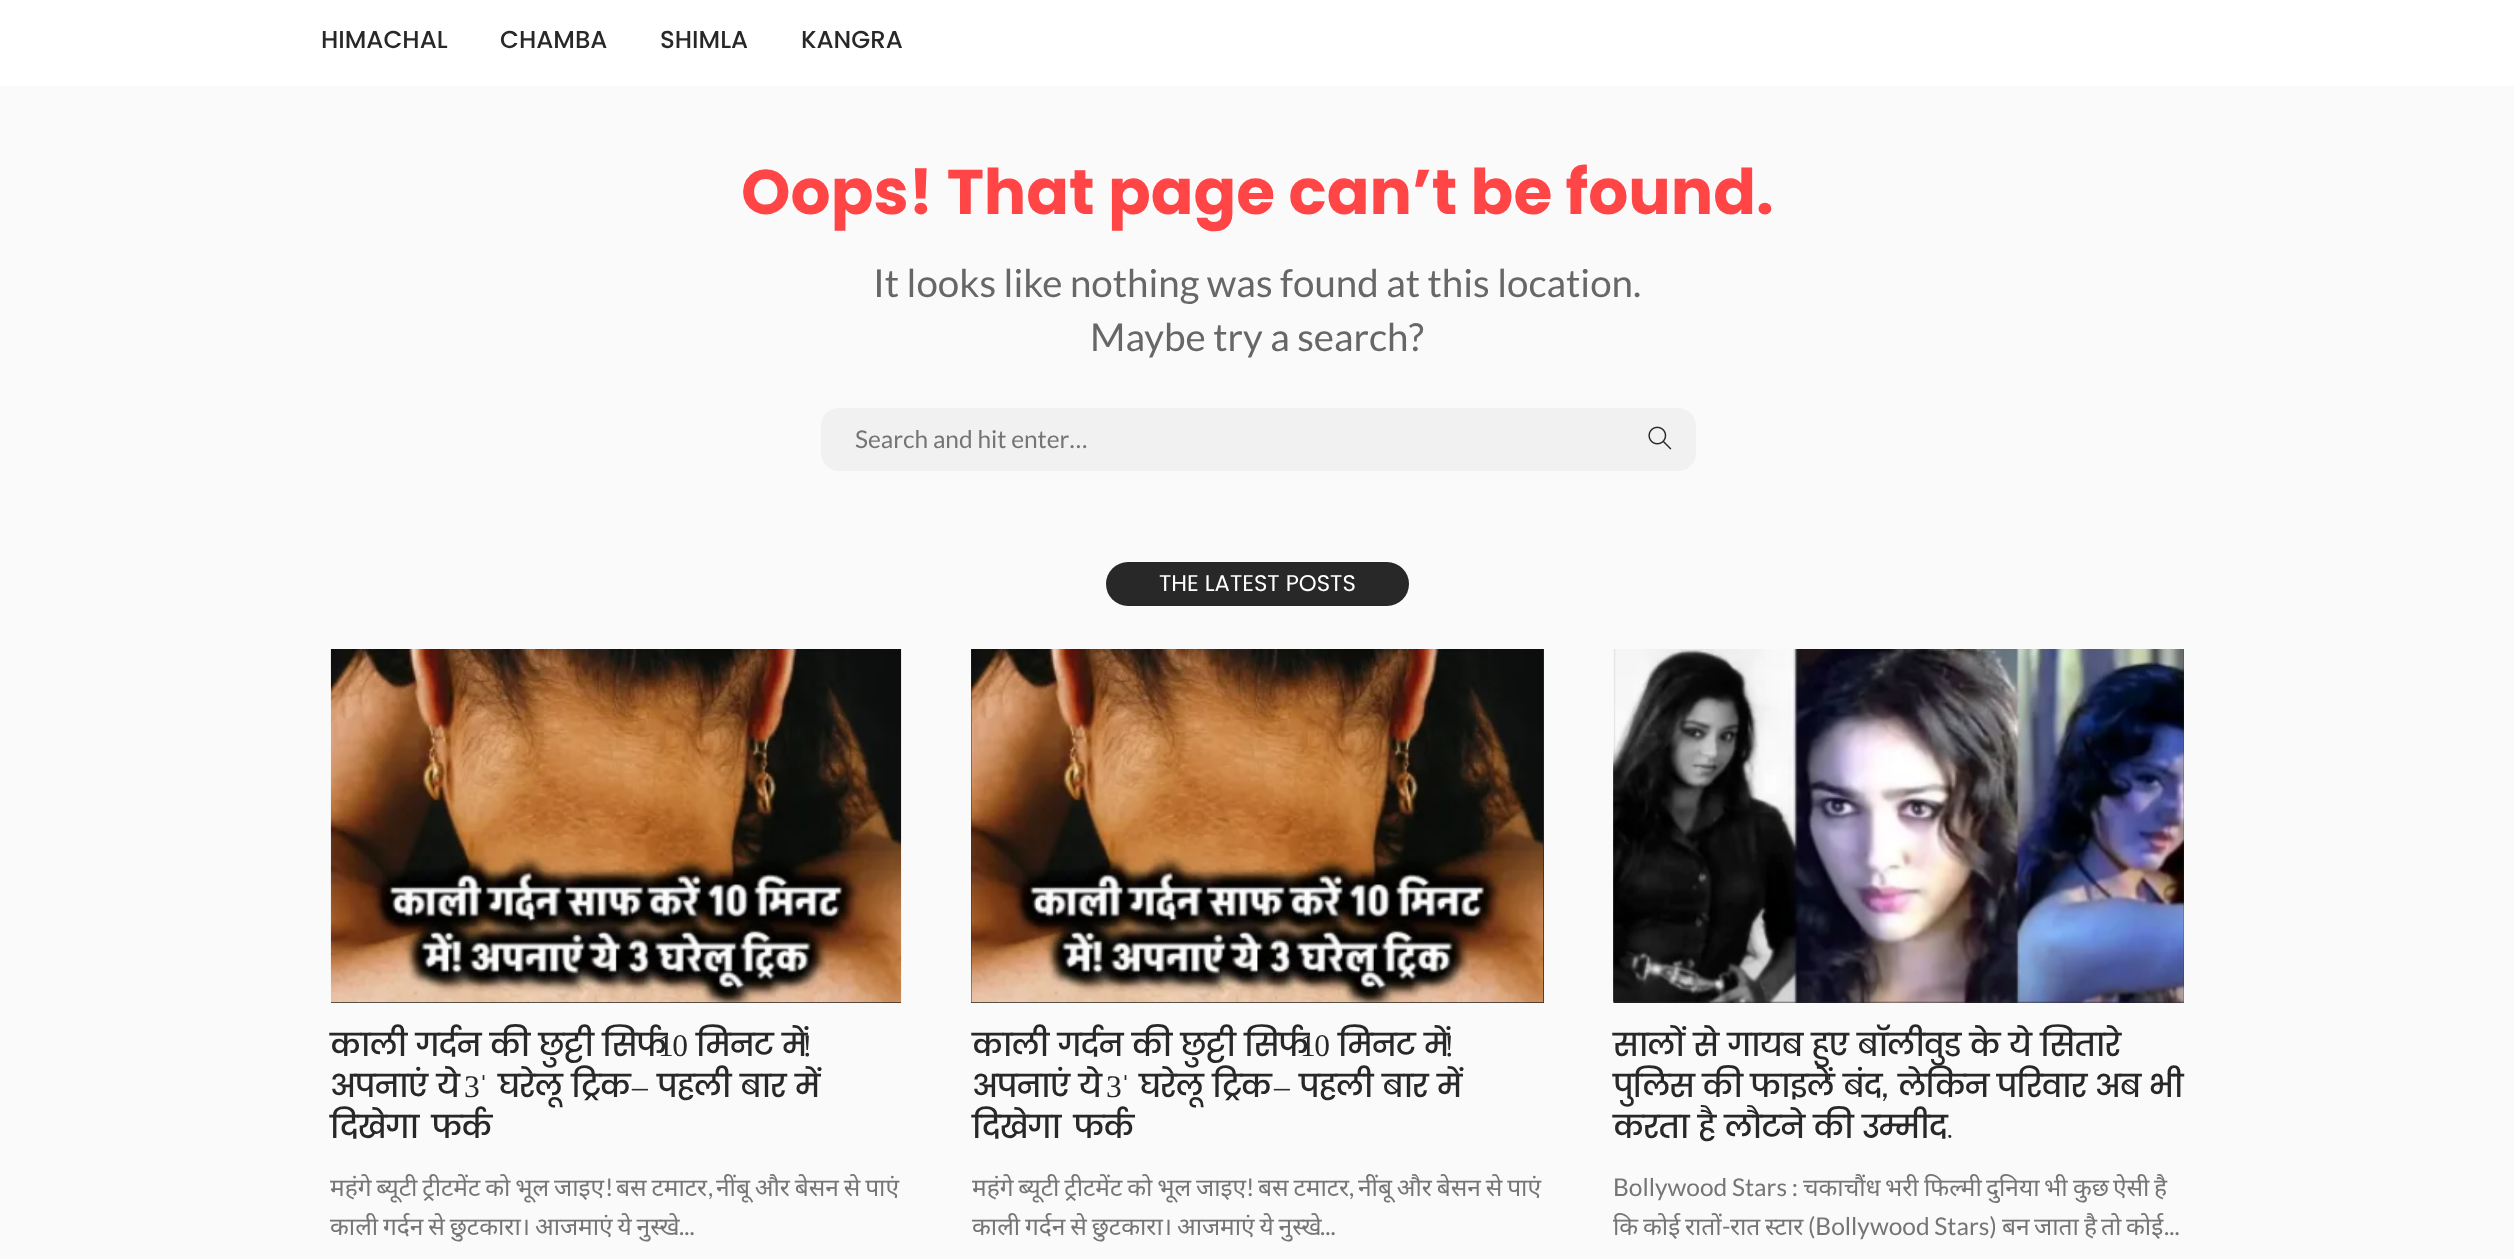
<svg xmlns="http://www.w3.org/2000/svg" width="2514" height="1259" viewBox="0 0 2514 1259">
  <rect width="100%" height="100%" fill="#fafafa"/>
  <path d="M0 0h2514v86H0z" fill="#fff"/>
  <rect x="821" y="408" width="875" height="63" rx="18" fill="#f1f1f1"/>
  <image x="1648" y="426" width="24" height="24" href="img/1.png"/>
  <rect x="1106" y="562" width="303" height="44" rx="22" fill="#282828"/>
  <path d="M331 1002h570v1H331z" fill="#282828"/>
  <image x="330" y="649" width="572" height="354" href="img/2.png"/>
  <path d="M971 649h573v354H971z" fill="#282828"/>
  <image x="971" y="649" width="573" height="354" href="img/3.png"/>
  <path d="M1614 649h570v354H1614z" fill="#282828"/>
  <image x="1613" y="649" width="571" height="354" href="img/4.png"/>
  <g font-family="Poppins" font-size="24.5" font-weight="500" fill="#282828">
    <text x="321" y="48">HIMACHAL</text>
    <text x="500" y="48">CHAMBA</text>
    <text x="660" y="48">SHIMLA</text>
    <text x="801" y="48">KANGRA</text>
  </g>
  <text x="741" y="214" font-family="Poppins" font-size="63" font-weight="bold" fill="#ff4545">Oops! That page can’t be found.</text>
  <g font-family="Lato" font-size="38.5" fill="#676767">
    <text x="873" y="297">It looks like nothing was found at this location.</text>
    <text x="1090" y="351">Maybe try a search?</text>
  </g>
  <text x="855" y="448" font-family="Lato" font-size="24.5" fill="#757575">Search and hit enter…</text>
  <text x="1159" y="591" font-family="Poppins" font-size="22.75" fill="#fff">THE LATEST POSTS</text>
  <text x="330" y="1056" word-spacing="3" font-family="Poppins" font-size="31.5" font-weight="500" letter-spacing="-1.4" fill="#282828">काली गर्दन की छुट्टी सिर्फ</text>
  <text x="658" y="1056" font-family="Liberation Serif" font-size="31.5" letter-spacing="-1.4" fill="#282828">10</text>
  <text x="696" y="1056" word-spacing="3" font-family="Poppins" font-size="31.5" font-weight="500" letter-spacing="-1.4" fill="#282828">मिनट में</text>
  <text x="802" y="1056" font-family="Liberation Serif" font-size="31.5" letter-spacing="-1.4" fill="#282828">!</text>
  <text x="330" y="1097" word-spacing="3" font-family="Poppins" font-size="31.5" font-weight="500" letter-spacing="-1.4" fill="#282828">अपनाएं ये</text>
  <text x="464" y="1097" font-family="Liberation Serif" font-size="31.5" letter-spacing="-1.4" fill="#282828">3ˈ</text>
  <text x="498" y="1097" word-spacing="3" font-family="Poppins" font-size="31.5" font-weight="500" letter-spacing="-1.4" fill="#282828">घरेलू ट्रिक</text>
  <text x="632" y="1097" font-family="Liberation Serif" font-size="31.5" letter-spacing="-1.4" fill="#282828">–</text>
  <g font-family="Poppins" font-size="31.5" font-weight="500" letter-spacing="-1.4" fill="#282828">
    <text x="657" y="1097" word-spacing="3">पहली बार में</text>
    <text x="330" y="1138" word-spacing="7">दिखेगा फर्क</text>
  </g>
  <text x="330" y="1196" word-spacing="-1.5" font-family="Noto Sans" font-size="24.5" fill="#757575">महंगे ब्यूटी ट्रीटमेंट को भूल जाइए</text>
  <text x="605" y="1196" font-family="Lato" font-size="24.5" fill="#757575">!</text>
  <text x="616" y="1196" word-spacing="-1.5" font-family="Noto Sans" font-size="24.5" fill="#757575">बस टमाटर</text>
  <text x="708" y="1196" font-family="Lato" font-size="24.5" fill="#757575">,</text>
  <g font-family="Noto Sans" font-size="24.5" fill="#757575">
    <text x="716" y="1196" word-spacing="-1.5">नींबू और बेसन से पाएं</text>
    <text x="330" y="1235" word-spacing="-1.5">काली गर्दन से छुटकारा। आजमाएं ये नुस्खे</text>
  </g>
  <text x="679" y="1235" font-family="Lato" font-size="24.5" fill="#757575">...</text>
  <text x="972" y="1056" word-spacing="3" font-family="Poppins" font-size="31.5" font-weight="500" letter-spacing="-1.4" fill="#282828">काली गर्दन की छुट्टी सिर्फ</text>
  <text x="1300" y="1056" font-family="Liberation Serif" font-size="31.5" letter-spacing="-1.4" fill="#282828">10</text>
  <text x="1338" y="1056" word-spacing="3" font-family="Poppins" font-size="31.5" font-weight="500" letter-spacing="-1.4" fill="#282828">मिनट में</text>
  <text x="1444" y="1056" font-family="Liberation Serif" font-size="31.5" letter-spacing="-1.4" fill="#282828">!</text>
  <text x="972" y="1097" word-spacing="3" font-family="Poppins" font-size="31.5" font-weight="500" letter-spacing="-1.4" fill="#282828">अपनाएं ये</text>
  <text x="1106" y="1097" font-family="Liberation Serif" font-size="31.5" letter-spacing="-1.4" fill="#282828">3ˈ</text>
  <text x="1139" y="1097" word-spacing="3" font-family="Poppins" font-size="31.5" font-weight="500" letter-spacing="-1.4" fill="#282828">घरेलू ट्रिक</text>
  <text x="1274" y="1097" font-family="Liberation Serif" font-size="31.5" letter-spacing="-1.4" fill="#282828">–</text>
  <g font-family="Poppins" font-size="31.5" font-weight="500" letter-spacing="-1.4" fill="#282828">
    <text x="1299" y="1097" word-spacing="3">पहली बार में</text>
    <text x="972" y="1138" word-spacing="7">दिखेगा फर्क</text>
  </g>
  <text x="972" y="1196" word-spacing="-1.5" font-family="Noto Sans" font-size="24.5" fill="#757575">महंगे ब्यूटी ट्रीटमेंट को भूल जाइए</text>
  <text x="1246" y="1196" font-family="Lato" font-size="24.5" fill="#757575">!</text>
  <text x="1258" y="1196" word-spacing="-1.5" font-family="Noto Sans" font-size="24.5" fill="#757575">बस टमाटर</text>
  <text x="1349" y="1196" font-family="Lato" font-size="24.5" fill="#757575">,</text>
  <g font-family="Noto Sans" font-size="24.5" fill="#757575">
    <text x="1358" y="1196" word-spacing="-1.5">नींबू और बेसन से पाएं</text>
    <text x="972" y="1235" word-spacing="-1.5">काली गर्दन से छुटकारा। आजमाएं ये नुस्खे</text>
  </g>
  <text x="1320" y="1235" font-family="Lato" font-size="24.5" fill="#757575">...</text>
  <g font-family="Poppins" font-size="31.5" font-weight="500" letter-spacing="-1.4" fill="#282828">
    <text x="1613" y="1056" word-spacing="2.75">सालों से गायब हुए बॉलीवुड के ये सितारे</text>
    <text x="1613" y="1097" word-spacing="2">पुलिस की फाइलें</text>
    <text x="1843" y="1097">बंद</text>
  </g>
  <text x="1824" y="1097" font-family="Liberation Serif" font-size="31.5" letter-spacing="-1.4" fill="#282828">ˈ</text>
  <text x="1880" y="1097" font-family="WenQuanYi Zen Hei" font-size="31.5" font-weight="500" letter-spacing="-1.4" fill="#282828">,</text>
  <g font-family="Poppins" font-size="31.5" font-weight="500" letter-spacing="-1.4" fill="#282828">
    <text x="1898" y="1097" word-spacing="2">लेकिन परिवार अब भी</text>
    <text x="1613" y="1138" word-spacing="2.75">करता है लौटने की उम्मीद</text>
  </g>
  <text x="1935" y="1138" font-family="WenQuanYi Zen Hei" font-size="31.5" font-weight="500" letter-spacing="-1.4" fill="#282828">﹒</text>
  <text x="1613" y="1196" font-family="Lato" font-size="24.5" fill="#757575">Bollywood Stars :</text>
  <g font-family="Noto Sans" font-size="24.5" fill="#757575">
    <text x="1803" y="1196">चकाचौंध</text>
    <text x="1885" y="1196">भरी</text>
    <text x="1924" y="1196">फिल्मी</text>
    <text x="1986" y="1196">दुनिया</text>
    <text x="2044" y="1196">भी</text>
    <text x="2073" y="1196">कुछ</text>
    <text x="2113" y="1196">ऐसी</text>
    <text x="2154" y="1196">है</text>
    <text x="1613" y="1235">कि</text>
    <text x="1643" y="1235">कोई</text>
    <text x="1685" y="1235">रातों</text>
  </g>
  <text x="1722" y="1235" font-family="Lato" font-size="24.5" fill="#757575">-</text>
  <g font-family="Noto Sans" font-size="24.5" fill="#757575">
    <text x="1730" y="1235">रात</text>
    <text x="1765" y="1235">स्टार</text>
  </g>
  <text x="1808" y="1235" font-family="Lato" font-size="24.5" fill="#757575">(Bollywood Stars)</text>
  <g font-family="Noto Sans" font-size="24.5" fill="#757575">
    <text x="2002" y="1235">बन</text>
    <text x="2034" y="1235">जाता</text>
    <text x="2084" y="1235">है</text>
    <text x="2101" y="1235">तो</text>
    <text x="2126" y="1235">कोई</text>
  </g>
  <text x="2164" y="1235" font-family="Lato" font-size="24.5" fill="#757575">...</text>
</svg>
